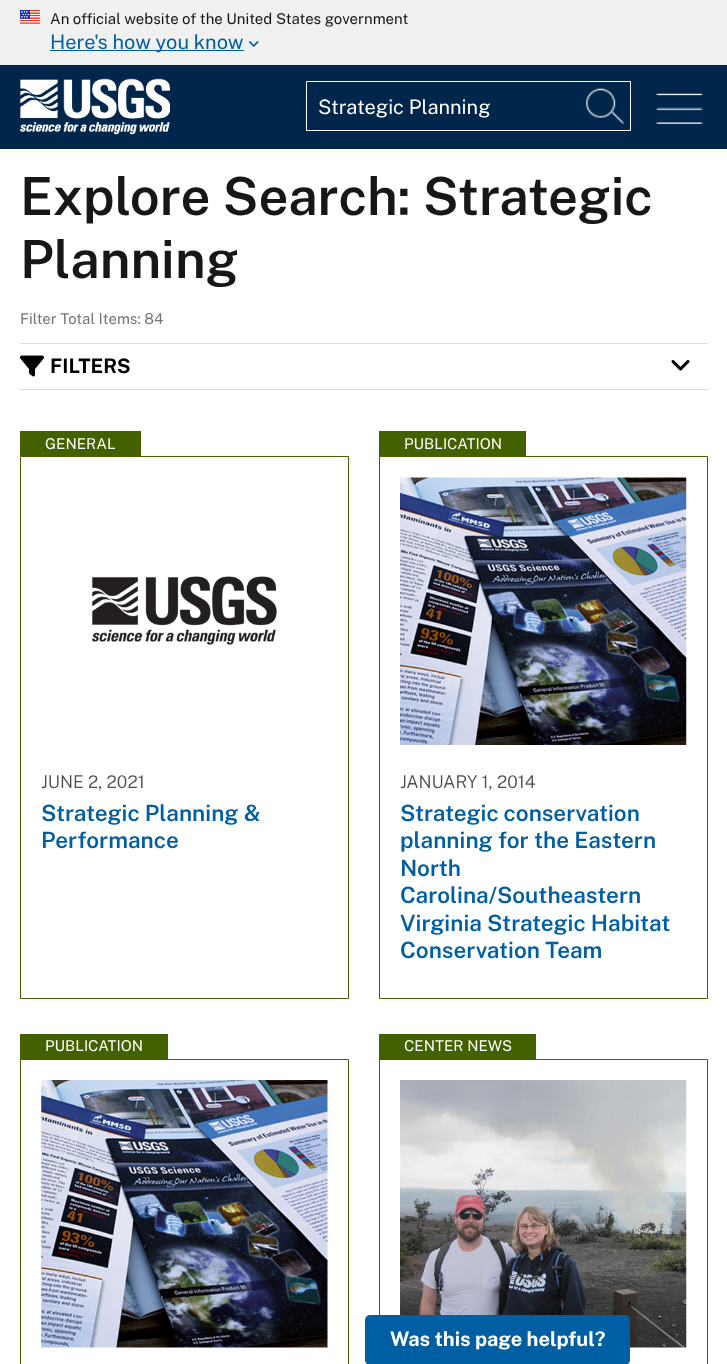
<svg xmlns="http://www.w3.org/2000/svg" width="727" height="1364" viewBox="0 0 727 1364">
  <rect width="100%" height="100%" fill="#fff"/>
  <path d="M0 0h727v65H0z" fill="#f0f0f0"/>
  <image x="20" y="10" width="20" height="14" href="img/1.png"/>
  <path d="M50 50h194v1H50z" fill="#005ea2"/>
  <image x="248" y="41" width="11" height="6" href="img/2.png"/>
  <path d="M0 65h727v84H0z" fill="#00264c"/>
  <image x="20" y="78" width="150" height="57" href="img/3.png"/>
  <path d="M306.5 81.5h324v49H306.5z" fill="none" stroke="#fff"/>
  <image x="586" y="88" width="38" height="36" href="img/4.png"/>
  <image x="656" y="93" width="47" height="31" href="img/5.png"/>
  <path d="M20 343h688v1H20z" fill="#ddd"/>
  <path d="M20 389h688v1H20z" fill="#ddd"/>
  <image x="20" y="355" width="24" height="22" href="img/6.png"/>
  <image x="671" y="360" width="19" height="11" href="img/7.png"/>
  <path d="M20 431h121v25H20z" fill="#446100"/>
  <path d="M20.5 456.5h328v542H20.5z" fill="none" stroke="#446100"/>
  <image x="91" y="576" width="186" height="69" href="img/8.png"/>
  <path d="M379 431h147v25H379z" fill="#446100"/>
  <path d="M379.5 456.5h328v542H379.5z" fill="none" stroke="#446100"/>
  <image x="400" y="477" width="287" height="268" href="img/9.png"/>
  <path d="M20 1034h148v25H20z" fill="#446100"/>
  <path d="M20.5 1059.5h328v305H20.5z" fill="none" stroke="#446100"/>
  <image x="41" y="1080" width="287" height="268" href="img/10.png"/>
  <path d="M379 1034h157v25H379z" fill="#446100"/>
  <path d="M379.5 1059.5h328v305H379.5z" fill="none" stroke="#446100"/>
  <image x="400" y="1080" width="287" height="268" href="img/11.png"/>
  <rect x="365" y="1315" width="265" height="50" rx="5" fill="#005ea2"/>
  <text x="50" y="24" font-family="Public Sans" font-size="15" fill="#171717">An official website of the United States government</text>
  <text x="50" y="49" font-family="Public Sans" font-size="20" fill="#005ea2">Here's how you know</text>
  <text x="318" y="114" font-family="Public Sans" font-size="20" fill="#fff">Strategic Planning</text>
  <g font-family="Public Sans" font-size="52.5" font-weight="600" fill="#171717">
    <text x="20" y="215">Explore Search: Strategic</text>
    <text x="20" y="278">Planning</text>
  </g>
  <text x="20" y="324" font-family="Public Sans" font-size="15" fill="#757575">Filter Total Items: 84</text>
  <text x="50" y="373" font-family="Public Sans" font-size="20" font-weight="bold" fill="#000">FILTERS</text>
  <text x="45" y="449" font-family="Public Sans" font-size="15" fill="#fff">GENERAL</text>
  <text x="41" y="788" font-family="Public Sans" font-size="17.5" font-weight="300" fill="#4d4d4d">JUNE 2, 2021</text>
  <g font-family="Public Sans" font-size="22.5" font-weight="600" fill="#005ea2">
    <text x="41" y="821">Strategic Planning &amp;</text>
    <text x="41" y="848">Performance</text>
  </g>
  <text x="404" y="449" font-family="Public Sans" font-size="15" fill="#fff">PUBLICATION</text>
  <text x="400" y="788" font-family="Public Sans" font-size="17.5" font-weight="300" fill="#4d4d4d">JANUARY 1, 2014</text>
  <g font-family="Public Sans" font-size="22.5" font-weight="600" fill="#005ea2">
    <text x="400" y="821">Strategic conservation</text>
    <text x="400" y="848">planning for the Eastern</text>
    <text x="400" y="876">North</text>
    <text x="400" y="903">Carolina/Southeastern</text>
    <text x="400" y="931">Virginia Strategic Habitat</text>
    <text x="400" y="958">Conservation Team</text>
  </g>
  <g font-family="Public Sans" font-size="15" fill="#fff">
    <text x="45" y="1051">PUBLICATION</text>
    <text x="404" y="1051">CENTER NEWS</text>
  </g>
  <text x="390" y="1346" font-family="Public Sans" font-size="20" font-weight="bold" fill="#fff">Was this page helpful?</text>
</svg>
